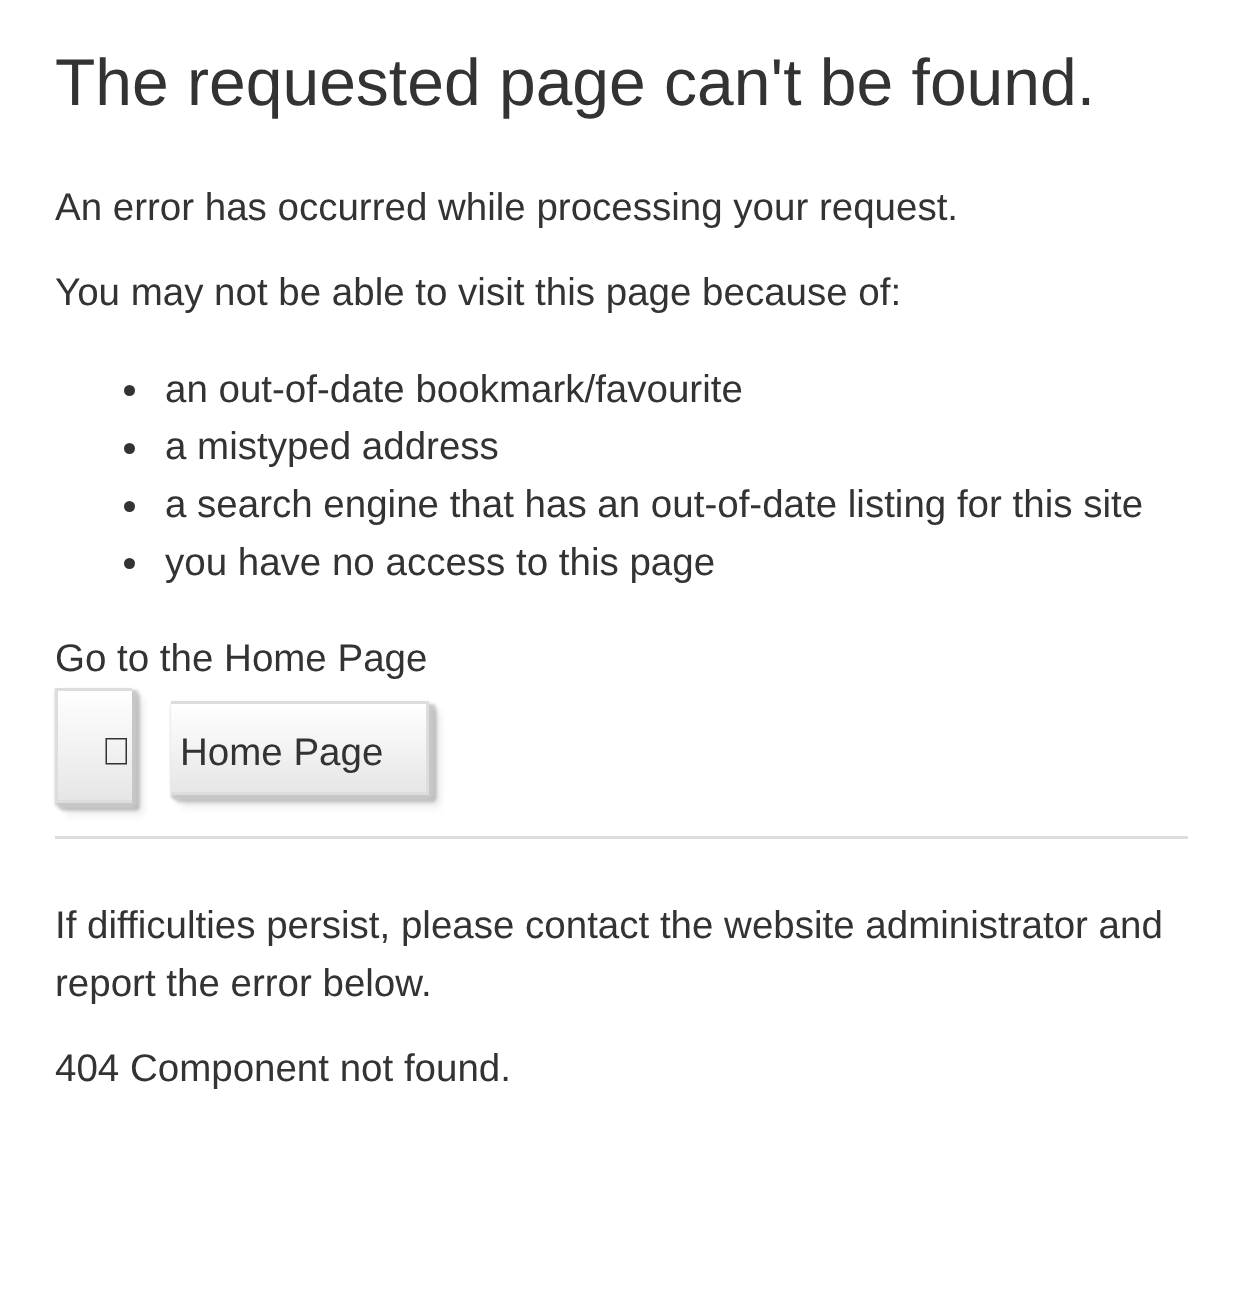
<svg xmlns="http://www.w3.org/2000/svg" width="1242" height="1298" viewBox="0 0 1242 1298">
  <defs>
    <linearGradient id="g1" gradientUnits="userSpaceOnUse" x1="95" y1="690" x2="95" y2="800"><stop offset="0" stop-color="#fff"/><stop offset="1" stop-color="#e6e6e6"/></linearGradient>
    <linearGradient id="g2" gradientUnits="userSpaceOnUse" x1="298" y1="704" x2="298" y2="792"><stop offset="0" stop-color="#fff"/><stop offset="1" stop-color="#e6e6e6"/></linearGradient>
  </defs>
  <rect width="100%" height="100%" fill="#fff"/>
  <circle cx="129.5" cy="390.5" r="5.5" fill="#333"/>
  <circle cx="129.5" cy="448.5" r="5.5" fill="#333"/>
  <circle cx="129.5" cy="506.5" r="5.5" fill="#333"/>
  <circle cx="129.5" cy="563.5" r="5.5" fill="#333"/>
  <path d="M66 701h77v116H66z" fill="#dbdbdb4d" filter="blur(3px)"/>
  <path d="M66 696h77v115H66z" fill="#d2d2d24d" filter="blur(3px)"/>
  <path d="M61 696h77v115H61z" fill="#50505033" filter="blur(1.5px)"/>
  <path d="M63 693h77v116H63z" fill="#50505033" filter="blur(1.5px)"/>
  <path d="M58 693h77v116H58z" fill="#c8c8c8e6" filter="blur(1.5px)"/>
  <path d="M61 690h77v116H61z" fill="#c8c8c8e6" filter="blur(1.5px)"/>
  <path d="M55 690h77v116H55z" fill="#c8c8c8e6" filter="blur(1.5px)"/>
  <path d="M58 691h74v109H58z" fill="url(#g1)"/>
  <path d="M55 688h77v3H55z" fill="#ddd"/>
  <path d="M55 800h77v3H55z" fill="#ddd"/>
  <path d="M55 688h3v115H55z" fill="#ddd"/>
  <path d="M182 715h258v94H182z" fill="#dbdbdb4d" filter="blur(3px)"/>
  <path d="M182 710h258v93H182z" fill="#d2d2d24d" filter="blur(3px)"/>
  <path d="M176 710h259v93H176z" fill="#50505033" filter="blur(1.5px)"/>
  <path d="M179 707h258v93H179z" fill="#50505033" filter="blur(1.5px)"/>
  <path d="M173 707h259v93H173z" fill="#c8c8c8e6" filter="blur(1.5px)"/>
  <path d="M176 704h259v94H176z" fill="#c8c8c8e6" filter="blur(1.5px)"/>
  <path d="M171 704h258v94H171z" fill="#c8c8c8e6" filter="blur(1.5px)"/>
  <path d="M171 704h255v88H171z" fill="url(#g2)"/>
  <path d="M171 701h258v3H171z" fill="#ddd"/>
  <path d="M426 701h3v94H426z" fill="#ddd"/>
  <path d="M171 792h258v3H171z" fill="#ddd"/>
  <path d="M105.5 738H127V764.5H105.5ZM107 739.5V763H125.5V739.5Z" fill="#333"/>
  <path d="M55 836h1133v3H55z" fill="#ddd"/>
  <text x="55" y="105" font-family="Liberation Sans" font-size="66" fill="#333">The requested page can't be found.</text>
  <g font-family="Liberation Sans" font-size="38.5" fill="#333">
    <text x="55" y="220">An error has occurred while processing your request.</text>
    <text x="55" y="305">You may not be able to visit this page because of:</text>
    <text x="165" y="402">an out-of-date bookmark/favourite</text>
    <text x="165" y="459">a mistyped address</text>
    <text x="165" y="517">a search engine that has an out-of-date listing for this site</text>
    <text x="165" y="575">you have no access to this page</text>
    <text x="55" y="671">Go to the Home Page</text>
    <text x="180" y="765">Home Page</text>
    <text x="55" y="938">If difficulties persist, please contact the website administrator and</text>
    <text x="55" y="996">report the error below.</text>
    <text x="55" y="1081">404 Component not found.</text>
  </g>
</svg>
